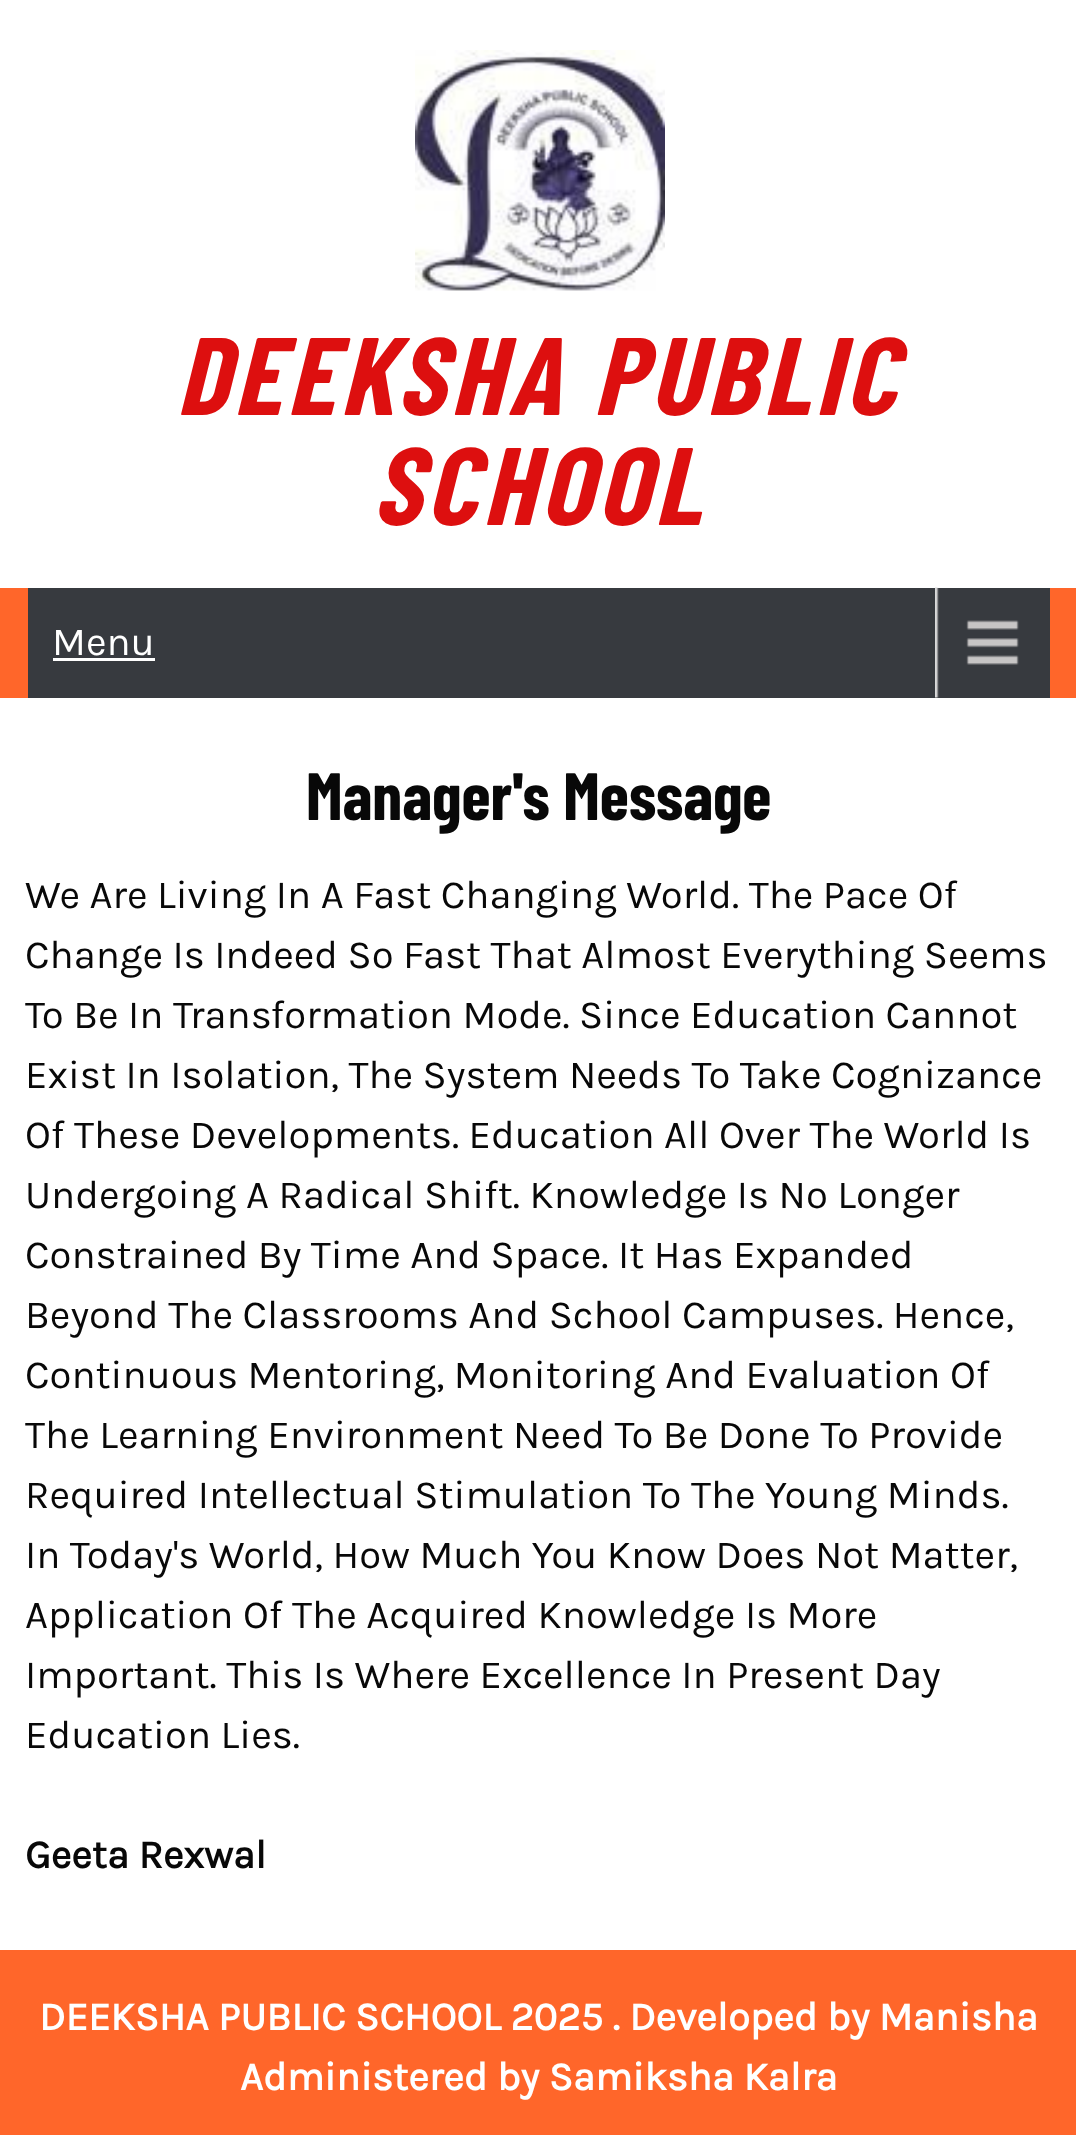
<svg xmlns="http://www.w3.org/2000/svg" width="1076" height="2135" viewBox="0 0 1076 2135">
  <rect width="100%" height="100%" fill="#fff"/>
  <image x="415" y="50" width="250" height="241" href="img/1.png"/>
  <path d="M0 588h1076v110H0z" fill="#ff662a"/>
  <path d="M28 588h1022v110H28z" fill="#373a3f"/>
  <image x="935" y="587" width="84" height="111" href="img/2.png"/>
  <path d="M53 658h102v3H53z" fill="#fff"/>
  <path d="M0 1950h1076v185H0z" fill="#ff662a"/>
  <g font-family="Barlow Condensed" font-size="110" font-weight="bold" font-style="italic" letter-spacing="5" fill="#dd0f0f">
    <text x="176" y="415">DEEKSHA PUBLIC</text>
    <text x="372" y="525">SCHOOL</text>
  </g>
  <text x="52" y="655" font-family="Karla" font-size="40" fill="#fff">Menu</text>
  <text x="306" y="820" font-family="Barlow Condensed" font-size="66.75" font-weight="bold" fill="#080808">Manager's Message</text>
  <g font-family="Karla" font-size="40" fill="#080808">
    <text x="25" y="908">We Are Living In A Fast Changing World. The Pace Of</text>
    <text x="25" y="968">Change Is Indeed So Fast That Almost Everything Seems</text>
    <text x="25" y="1028">To Be In Transformation Mode. Since Education Cannot</text>
    <text x="25" y="1088">Exist In Isolation, The System Needs To Take Cognizance</text>
    <text x="25" y="1148">Of These Developments. Education All Over The World Is</text>
    <text x="25" y="1208">Undergoing A Radical Shift. Knowledge Is No Longer</text>
    <text x="25" y="1268">Constrained By Time And Space. It Has Expanded</text>
    <text x="25" y="1328">Beyond The Classrooms And School Campuses. Hence,</text>
    <text x="25" y="1388">Continuous Mentoring, Monitoring And Evaluation Of</text>
    <text x="25" y="1448">The Learning Environment Need To Be Done To Provide</text>
    <text x="25" y="1508">Required Intellectual Stimulation To The Young Minds.</text>
    <text x="25" y="1568">In Today's World, How Much You Know Does Not Matter,</text>
    <text x="25" y="1628">Application Of The Acquired Knowledge Is More</text>
    <text x="25" y="1688">Important. This Is Where Excellence In Present Day</text>
    <text x="25" y="1748">Education Lies.</text>
  </g>
  <text x="25" y="1868" font-family="Karla" font-size="40" font-weight="bold" fill="#080808">Geeta Rexwal</text>
  <g font-family="Karla" font-size="40" font-weight="bold" fill="#fff">
    <text x="39" y="2030">DEEKSHA PUBLIC SCHOOL 2025 . Developed by Manisha</text>
    <text x="240" y="2090">Administered by Samiksha Kalra</text>
  </g>
</svg>
